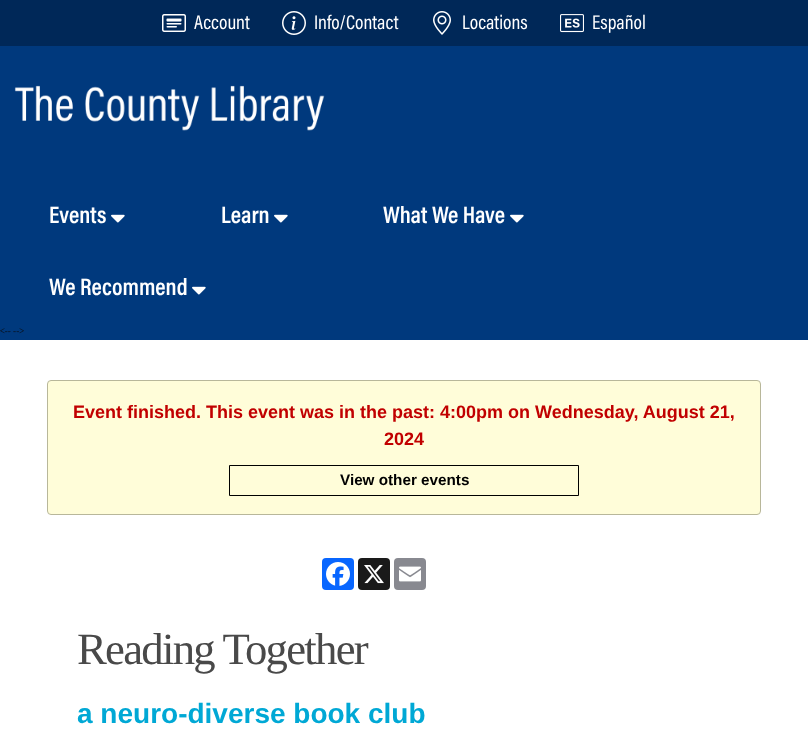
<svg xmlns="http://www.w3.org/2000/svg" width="808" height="734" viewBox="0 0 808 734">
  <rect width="100%" height="100%" fill="#fff"/>
  <path d="M0 46h808v294H0z" fill="#00397d"/>
  <path d="M0 0h808v46H0z" fill="#002858"/>
  <image x="162" y="14" width="24" height="18" href="img/1.png"/>
  <image x="282" y="11" width="24" height="24" href="img/2.png"/>
  <image x="433" y="11" width="18" height="24" href="img/3.png"/>
  <image x="560" y="14" width="24" height="19" href="img/4.png"/>
  <image x="14" y="85" width="311" height="46" href="img/5.png"/>
  <image x="111" y="214" width="14" height="9" href="img/6.png"/>
  <image x="274" y="214" width="14" height="9" href="img/6.png"/>
  <image x="510" y="214" width="14" height="9" href="img/6.png"/>
  <image x="192" y="286" width="14" height="9" href="img/6.png"/>
  <rect x="47.5" y="380.5" width="713" height="134" rx="3.5" fill="#fffdd9" stroke="#b8b79a"/>
  <path d="M229.5 465.5h349v30H229.5z" fill="none" stroke="#000"/>
  <rect x="322" y="558" width="32" height="32" rx="4" fill="#0866ff"/>
  <image x="326" y="562" width="24" height="24" href="img/7.png"/>
  <rect x="358" y="558" width="32" height="32" rx="4" fill="#1a1a1a"/>
  <image x="364" y="565" width="20" height="19" href="img/8.png"/>
  <rect x="394" y="558" width="32" height="32" rx="4" fill="#888990"/>
  <image x="399" y="566" width="22" height="16" href="img/9.png"/>
  <g font-family="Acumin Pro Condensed" font-size="20" fill="#fff">
    <text x="194" y="29">Account</text>
    <text x="314" y="29">Info/Contact</text>
    <text x="462" y="29">Locations</text>
    <text x="592" y="29">Español</text>
  </g>
  <g font-family="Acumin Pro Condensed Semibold" font-size="24" font-weight="600" fill="#fff">
    <text x="49" y="223">Events</text>
    <text x="221" y="223">Learn</text>
    <text x="383" y="223">What We Have</text>
    <text x="49" y="295">We Recommend</text>
  </g>
  <text x="0" y="335" font-family="Open Sans Condensed" font-size="12" font-weight="300" fill="#0a0a0a">&lt;-- --&gt;</text>
  <g font-family="Liberation Sans" font-size="18" font-weight="bold" fill="#c10000">
    <text x="73" y="418">Event finished. This event was in the past: 4:00pm on Wednesday, August 21,</text>
    <text x="384" y="445">2024</text>
  </g>
  <text x="340" y="485" font-family="Liberation Sans" font-size="15.25" font-weight="bold" fill="#000">View other events</text>
  <text x="77" y="664" font-family="Liberation Serif" font-size="44.75" letter-spacing="-1.75" fill="#494949">Reading Together</text>
  <text x="77" y="723" font-family="Liberation Sans" font-size="28" font-weight="bold" fill="#00a8d5">a neuro-diverse book club</text>
</svg>
